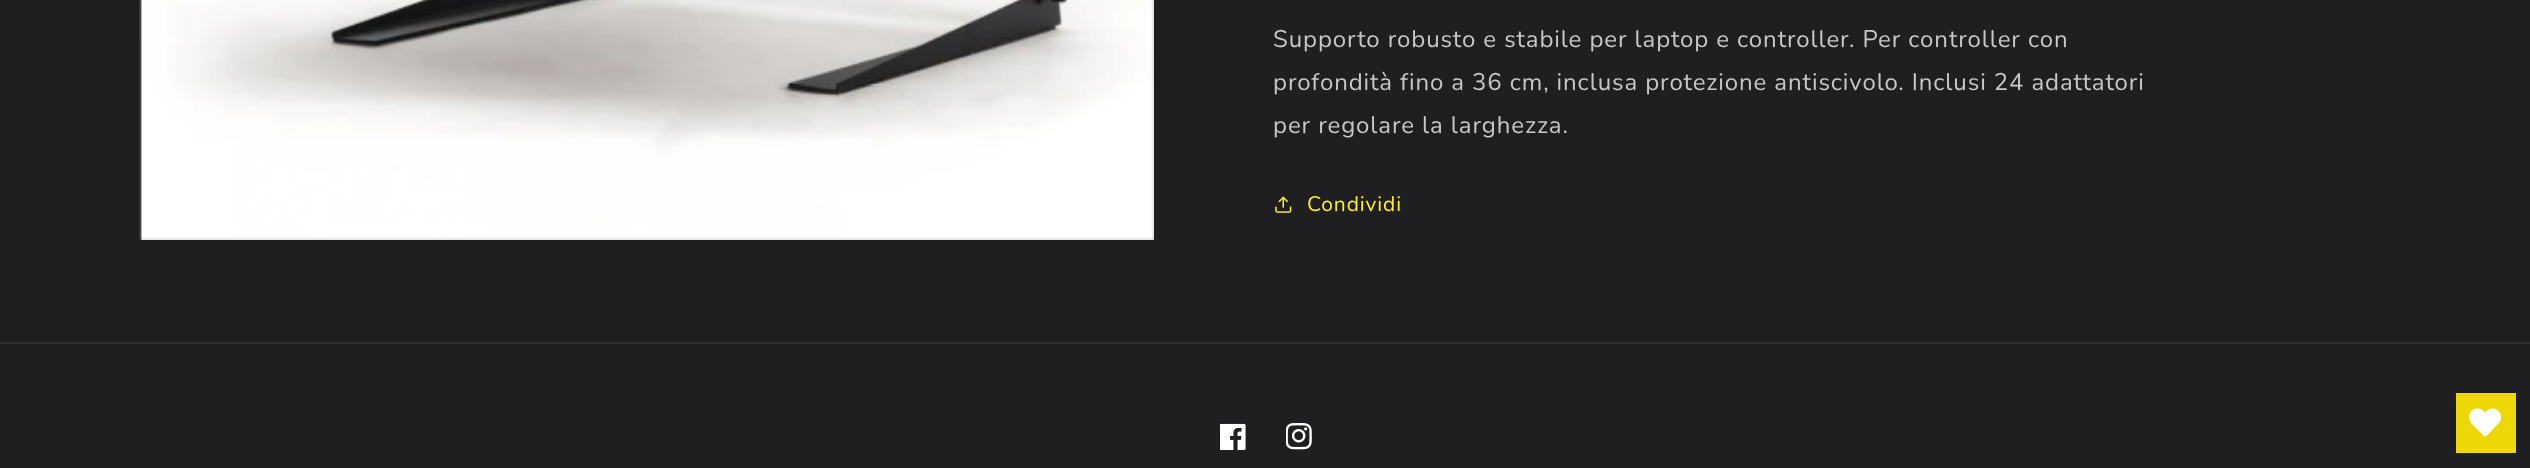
<svg xmlns="http://www.w3.org/2000/svg" width="2530" height="468" viewBox="0 0 2530 468">
  <rect width="100%" height="100%" fill="#1f1f21"/>
  <image x="139" y="0" width="1015" height="240" href="img/1.png"/>
  <image x="1275" y="196" width="17" height="17" href="img/2.png"/>
  <path d="M0 342h2530v2H0z" fill="#313133"/>
  <image x="1220" y="423" width="26" height="27" href="img/3.png"/>
  <image x="1286" y="423" width="26" height="27" href="img/4.png"/>
  <path d="M2456 393h60v60H2456z" fill="#edd705"/>
  <image x="2469" y="408" width="32" height="29" href="img/5.png"/>
  <g font-family="Nunito" font-size="24" letter-spacing="0.9" fill="#c7c7c8">
    <text x="1273" y="47">Supporto robusto e stabile per laptop e controller. Per controller con</text>
    <text x="1273" y="90">profondità fino a 36 cm, inclusa protezione antiscivolo. Inclusi 24 adattatori</text>
    <text x="1273" y="133">per regolare la larghezza.</text>
  </g>
  <text x="1307" y="211" font-family="Nunito" font-size="21" letter-spacing="0.9" fill="#fdef29">Condividi</text>
</svg>
